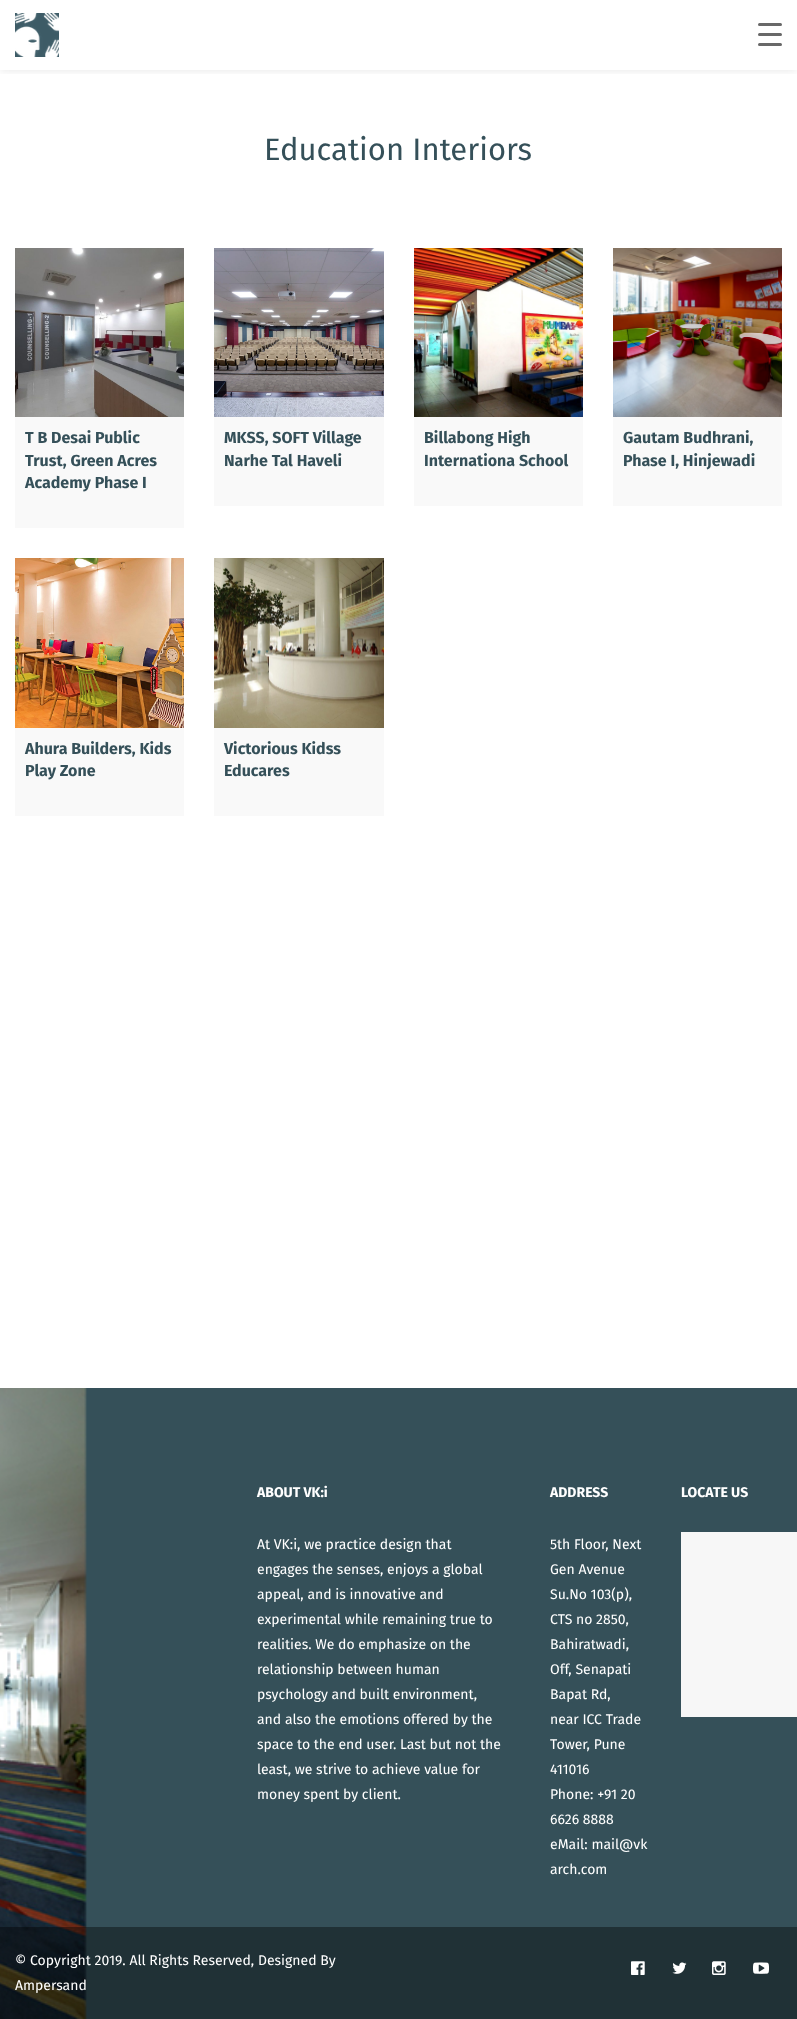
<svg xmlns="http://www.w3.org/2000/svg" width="797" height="2019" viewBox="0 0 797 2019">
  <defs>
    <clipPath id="clip1"><path d="M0 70h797v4H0z"/></clipPath>
  </defs>
  <rect width="100%" height="100%" fill="#fff"/>
  <g clip-path="url(#clip1)">
    <path d="M0 0h797v70H0z" fill="#0000001a" filter="blur(5px)"/>
  </g>
  <image x="15" y="13" width="44" height="44" href="img/1.png"/>
  <rect x="758" y="33" width="24" height="3" rx="1.5" fill="#686868"/>
  <rect x="758" y="23" width="24" height="3" rx="1.5" fill="#686868"/>
  <rect x="758" y="43" width="24" height="3" rx="1.5" fill="#686868"/>
  <image x="15" y="248" width="169" height="169" href="img/2.png"/>
  <path d="M15 417h169v111H15z" fill="#f9f9f9"/>
  <image x="214" y="248" width="170" height="169" href="img/3.png"/>
  <path d="M214 417h170v89H214z" fill="#f9f9f9"/>
  <image x="414" y="248" width="169" height="169" href="img/4.png"/>
  <path d="M414 417h169v89H414z" fill="#f9f9f9"/>
  <image x="613" y="248" width="169" height="169" href="img/5.png"/>
  <path d="M613 417h169v89H613z" fill="#f9f9f9"/>
  <image x="15" y="558" width="169" height="170" href="img/6.png"/>
  <path d="M15 728h169v88H15z" fill="#f9f9f9"/>
  <image x="214" y="558" width="170" height="170" href="img/7.png"/>
  <path d="M214 728h170v88H214z" fill="#f9f9f9"/>
  <image x="0" y="1388" width="797" height="631" href="img/8.png"/>
  <path d="M681 1532h116v185H681z" fill="#f7f7f7"/>
  <path d="M0 1927h797v92H0z" fill="#03030366"/>
  <image x="631" y="1961" width="14" height="14" href="img/9.png"/>
  <image x="672" y="1962" width="15" height="12" href="img/10.png"/>
  <image x="712" y="1961" width="14" height="14" href="img/11.png"/>
  <image x="753" y="1962" width="16" height="12" href="img/12.png"/>
  <text x="264" y="160" font-family="Fira Sans" font-size="31" fill="#355059">Education Interiors</text>
  <g font-family="Fira Sans" font-size="16" font-weight="bold" fill="#355059">
    <text x="25" y="443">T B Desai Public</text>
    <text x="25" y="466">Trust, Green Acres</text>
    <text x="25" y="488">Academy Phase I</text>
    <text x="224" y="443">MKSS, SOFT Village</text>
    <text x="224" y="466">Narhe Tal Haveli</text>
    <text x="424" y="443">Billabong High</text>
    <text x="424" y="466">Internationa School</text>
    <text x="623" y="443">Gautam Budhrani,</text>
    <text x="623" y="466">Phase I, Hinjewadi</text>
    <text x="25" y="754">Ahura Builders, Kids</text>
    <text x="25" y="776">Play Zone</text>
    <text x="224" y="754">Victorious Kidss</text>
    <text x="224" y="776">Educares</text>
  </g>
  <text x="257" y="1497" font-family="Fira Sans" font-size="14" font-weight="bold" fill="#fff">ABOUT VK:i</text>
  <g font-family="Fira Sans" font-size="14" fill="#fff">
    <text x="257" y="1549">At VK:i, we practice design that</text>
    <text x="257" y="1574">engages the senses, enjoys a global</text>
    <text x="257" y="1599">appeal, and is innovative and</text>
    <text x="257" y="1624">experimental while remaining true to</text>
    <text x="257" y="1649">realities. We do emphasize on the</text>
    <text x="257" y="1674">relationship between human</text>
    <text x="257" y="1699">psychology and built environment,</text>
    <text x="257" y="1724">and also the emotions offered by the</text>
    <text x="257" y="1749">space to the end user. Last but not the</text>
    <text x="257" y="1774">least, we strive to achieve value for</text>
    <text x="257" y="1799">money spent by client.</text>
  </g>
  <text x="550" y="1497" font-family="Fira Sans" font-size="14" font-weight="bold" fill="#fff">ADDRESS</text>
  <g font-family="Fira Sans" font-size="14" fill="#fff">
    <text x="550" y="1549">5th Floor, Next</text>
    <text x="550" y="1574">Gen Avenue</text>
    <text x="550" y="1599">Su.No 103(p),</text>
    <text x="550" y="1624">CTS no 2850,</text>
    <text x="550" y="1649">Bahiratwadi,</text>
    <text x="550" y="1674">Off, Senapati</text>
    <text x="550" y="1699">Bapat Rd,</text>
    <text x="550" y="1724">near ICC Trade</text>
    <text x="550" y="1749">Tower, Pune</text>
    <text x="550" y="1774">411016</text>
    <text x="550" y="1799">Phone: +91 20</text>
    <text x="550" y="1824">6626 8888</text>
    <text x="550" y="1849">eMail: mail@vk</text>
    <text x="550" y="1874">arch.com</text>
  </g>
  <text x="681" y="1497" font-family="Fira Sans" font-size="14" font-weight="bold" fill="#fff">LOCATE US</text>
  <g font-family="Fira Sans" font-size="14" fill="#fff">
    <text x="15" y="1965">© Copyright 2019. All Rights Reserved, Designed By</text>
    <text x="15" y="1990">Ampersand</text>
  </g>
</svg>
